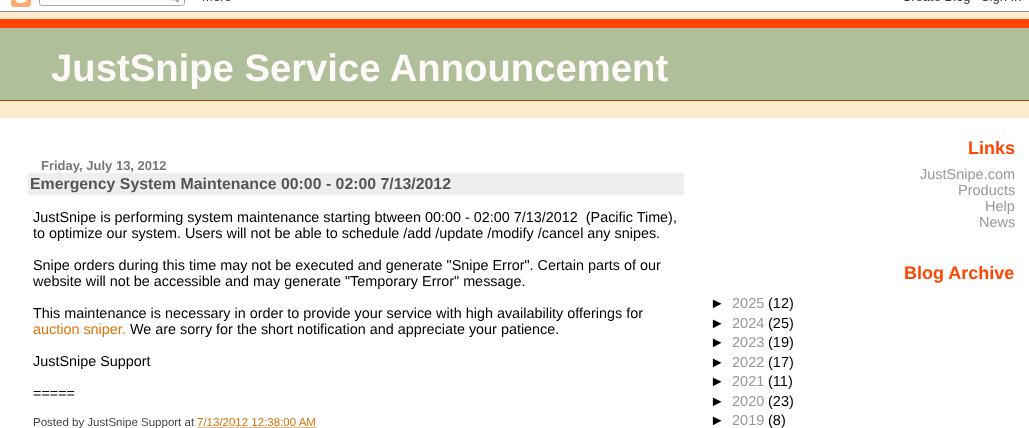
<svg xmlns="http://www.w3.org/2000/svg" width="1029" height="428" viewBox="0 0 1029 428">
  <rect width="100%" height="100%" fill="#fff"/>
  <image x="0" y="0" width="1029" height="12" href="img/1.png"/>
  <path d="M0 12h1029v105H0z" fill="#ffebcd"/>
  <path d="M0 117h1029v1H0z" fill="#eee"/>
  <path d="M0 28h1029v72H0z" fill="#aebf9a"/>
  <path d="M0 19h1029v9H0z" fill="#ff4500"/>
  <path d="M0 100h1029v1H0z" fill="#9e5205"/>
  <path d="M28 173h656v22H28z" fill="#eee"/>
  <path d="M197.5 427.5H316.5" fill="none" stroke="#de7008" stroke-dasharray="1 1"/>
  <text x="51" y="81" font-family="Liberation Sans" font-size="38.25" font-weight="bold" fill="#fffafa">JustSnipe Service Announcement</text>
  <text x="41" y="170" font-family="Liberation Sans" font-size="13" font-weight="bold" fill="#777">Friday, July 13, 2012</text>
  <text x="30" y="189" font-family="Liberation Sans" font-size="15.85" font-weight="bold" fill="#555">Emergency System Maintenance 00:00 - 02:00 7/13/2012</text>
  <g font-family="Liberation Sans" font-size="14.4" fill="#000">
    <text x="33" y="222" xml:space="preserve">JustSnipe is performing system maintenance starting btween 00:00 - 02:00 7/13/2012  (Pacific Time),</text>
    <text x="33" y="238">to optimize our system. Users will not be able to schedule /add /update /modify /cancel any snipes.</text>
    <text x="33" y="270">Snipe orders during this time may not be executed and generate "Snipe Error". Certain parts of our</text>
    <text x="33" y="286">website will not be accessible and may generate "Temporary Error" message.</text>
    <text x="33" y="318">This maintenance is necessary in order to provide your service with high availability offerings for</text>
  </g>
  <text x="33" y="334" font-family="Liberation Sans" font-size="14.4" fill="#de7008">auction sniper.</text>
  <g font-family="Liberation Sans" font-size="14.4" fill="#000">
    <text x="130" y="334">We are sorry for the short notification and appreciate your patience.</text>
    <text x="33" y="366">JustSnipe Support</text>
    <text x="33" y="398">=====</text>
  </g>
  <text x="33" y="426" font-family="Liberation Sans" font-size="11.5" fill="#444">Posted by JustSnipe Support at</text>
  <text x="197" y="426" font-family="Liberation Sans" font-size="11.5" fill="#de7008">7/13/2012 12:38:00 AM</text>
  <text x="968" y="154" font-family="Liberation Sans" font-size="18" font-weight="bold" fill="#ff4500">Links</text>
  <g font-family="Liberation Sans" font-size="14.5" fill="#999">
    <text x="920" y="179">JustSnipe.com</text>
    <text x="958" y="195">Products</text>
    <text x="985" y="211">Help</text>
    <text x="979" y="227">News</text>
  </g>
  <text x="904" y="279" font-family="Liberation Sans" font-size="18" font-weight="bold" fill="#ff4500">Blog Archive</text>
  <text x="710" y="308" font-family="Liberation Sans" font-size="14.5" fill="#000">►</text>
  <text x="732" y="308" font-family="Liberation Sans" font-size="14.5" fill="#999">2025</text>
  <g font-family="Liberation Sans" font-size="14.5" fill="#000">
    <text x="768" y="308">(12)</text>
    <text x="710" y="328">►</text>
  </g>
  <text x="732" y="328" font-family="Liberation Sans" font-size="14.5" fill="#999">2024</text>
  <g font-family="Liberation Sans" font-size="14.5" fill="#000">
    <text x="768" y="328">(25)</text>
    <text x="710" y="347">►</text>
  </g>
  <text x="732" y="347" font-family="Liberation Sans" font-size="14.5" fill="#999">2023</text>
  <g font-family="Liberation Sans" font-size="14.5" fill="#000">
    <text x="768" y="347">(19)</text>
    <text x="710" y="367">►</text>
  </g>
  <text x="732" y="367" font-family="Liberation Sans" font-size="14.5" fill="#999">2022</text>
  <g font-family="Liberation Sans" font-size="14.5" fill="#000">
    <text x="768" y="367">(17)</text>
    <text x="710" y="386">►</text>
  </g>
  <text x="732" y="386" font-family="Liberation Sans" font-size="14.5" fill="#999">2021</text>
  <g font-family="Liberation Sans" font-size="14.5" fill="#000">
    <text x="768" y="386">(11)</text>
    <text x="710" y="406">►</text>
  </g>
  <text x="732" y="406" font-family="Liberation Sans" font-size="14.5" fill="#999">2020</text>
  <g font-family="Liberation Sans" font-size="14.5" fill="#000">
    <text x="768" y="406">(23)</text>
    <text x="710" y="425">►</text>
  </g>
  <text x="732" y="425" font-family="Liberation Sans" font-size="14.5" fill="#999">2019</text>
  <text x="768" y="425" font-family="Liberation Sans" font-size="14.5" fill="#000">(8)</text>
</svg>
